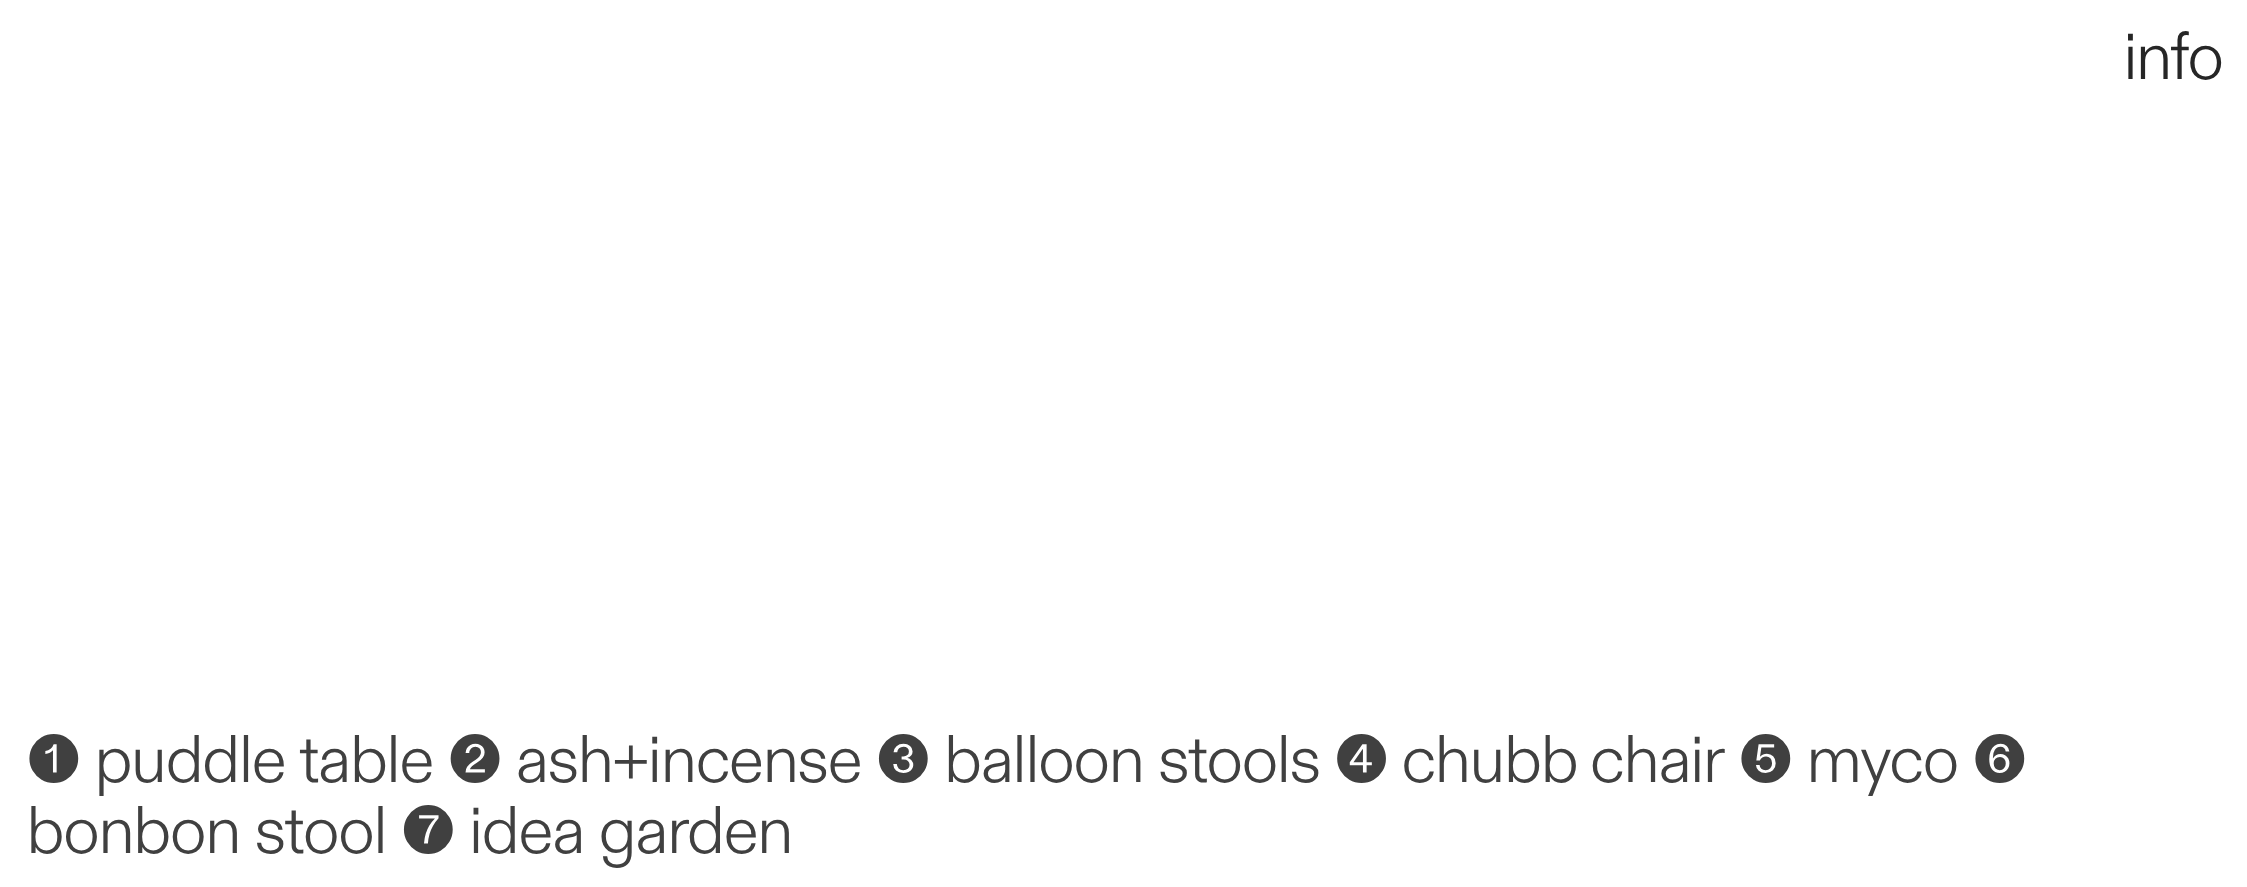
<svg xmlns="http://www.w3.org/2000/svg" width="2247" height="887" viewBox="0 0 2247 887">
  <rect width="100%" height="100%" fill="#fff"/>
  <text x="2123" y="79" font-family="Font" font-size="67.1" font-weight="300" letter-spacing="-2.5" fill="#262626">info</text>
  <g font-family="Font" font-size="67.1" font-weight="300" letter-spacing="-2.15" fill="#404040">
    <text x="26" y="782">❶ puddle table ❷ ash+incense ❸ balloon stools ❹</text>
    <text x="1401" y="782" word-spacing="-2">chubb chair</text>
    <text x="1738" y="782">❺ myco ❻</text>
    <text x="26" y="853">bonbon stool ❼ idea garden</text>
  </g>
</svg>
